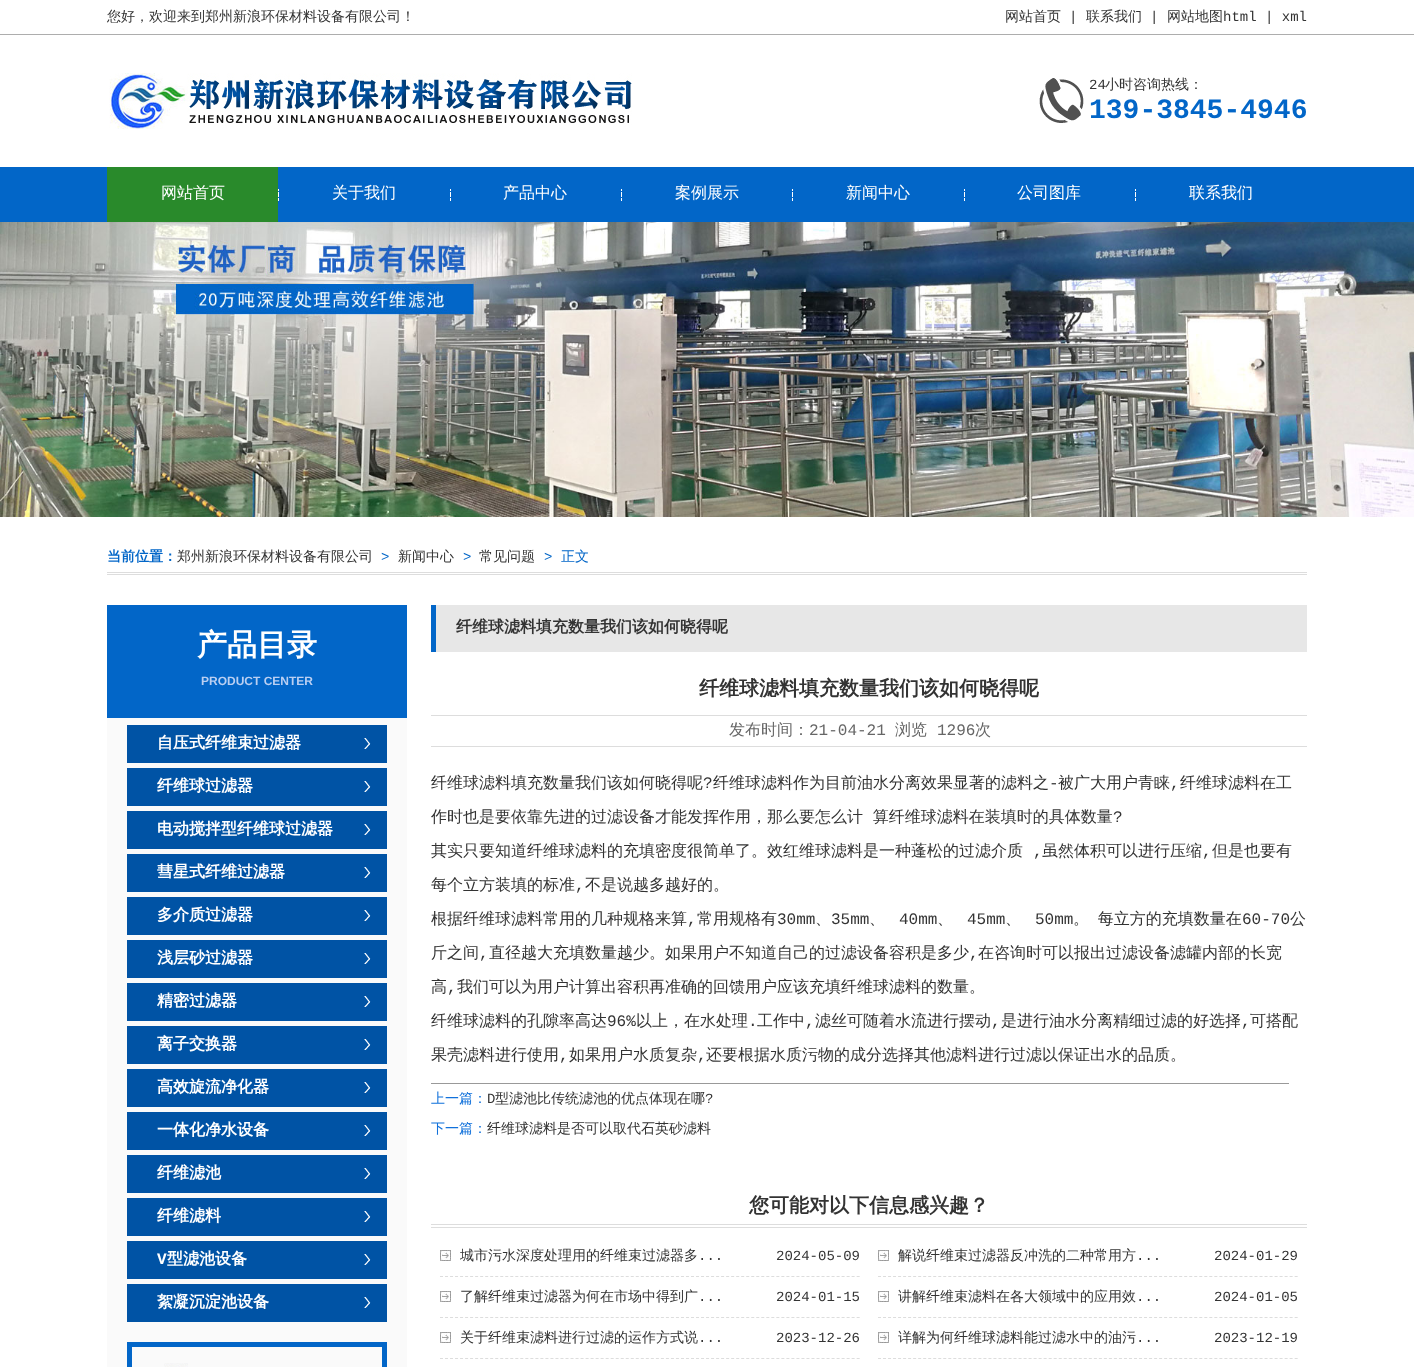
<svg xmlns="http://www.w3.org/2000/svg" width="1414" height="1367" viewBox="0 0 1414 1367">
  <rect width="100%" height="100%" fill="#fff"/>
  <path d="M0 34h1414v1H0z" fill="#adadad"/>
  <image x="109" y="73" width="523" height="56" href="img/1.png"/>
  <image x="1039" y="78" width="45" height="45" href="img/2.png"/>
  <path d="M0 167h1414v55H0z" fill="#0266c8"/>
  <path d="M107 167h171v55H107z" fill="#298a2b"/>
  <image x="278" y="189" width="1" height="12" href="img/3.png"/>
  <image x="450" y="189" width="1" height="12" href="img/3.png"/>
  <image x="621" y="189" width="1" height="12" href="img/3.png"/>
  <image x="792" y="189" width="1" height="12" href="img/3.png"/>
  <image x="964" y="189" width="1" height="12" href="img/3.png"/>
  <image x="1135" y="189" width="1" height="12" href="img/3.png"/>
  <image x="0" y="222" width="1414" height="295" href="img/4.png"/>
  <path d="M107 572h1200v1H107z" fill="#ddd"/>
  <path d="M107 574h1200v1H107z" fill="#ddd"/>
  <path d="M107 718h300v649H107z" fill="#fafafa"/>
  <path d="M107 605h300v113H107z" fill="#0266c8"/>
  <path d="M127 725h260v38H127z" fill="#0053a5"/>
  <image x="364" y="738" width="7" height="11" href="img/5.png"/>
  <path d="M127 768h260v38H127z" fill="#0053a5"/>
  <image x="364" y="781" width="7" height="11" href="img/5.png"/>
  <path d="M127 811h260v38H127z" fill="#0053a5"/>
  <image x="364" y="824" width="7" height="11" href="img/5.png"/>
  <path d="M127 854h260v38H127z" fill="#0053a5"/>
  <image x="364" y="867" width="7" height="11" href="img/5.png"/>
  <path d="M127 897h260v38H127z" fill="#0053a5"/>
  <image x="364" y="910" width="7" height="11" href="img/5.png"/>
  <path d="M127 940h260v38H127z" fill="#0053a5"/>
  <image x="364" y="953" width="7" height="11" href="img/5.png"/>
  <path d="M127 983h260v38H127z" fill="#0053a5"/>
  <image x="364" y="996" width="7" height="11" href="img/5.png"/>
  <path d="M127 1026h260v38H127z" fill="#0053a5"/>
  <image x="364" y="1039" width="7" height="11" href="img/5.png"/>
  <path d="M127 1069h260v38H127z" fill="#0053a5"/>
  <image x="364" y="1082" width="7" height="11" href="img/5.png"/>
  <path d="M127 1112h260v38H127z" fill="#0053a5"/>
  <image x="364" y="1125" width="7" height="11" href="img/5.png"/>
  <path d="M127 1155h260v38H127z" fill="#0053a5"/>
  <image x="364" y="1168" width="7" height="11" href="img/5.png"/>
  <path d="M127 1198h260v38H127z" fill="#0053a5"/>
  <image x="364" y="1211" width="7" height="11" href="img/5.png"/>
  <path d="M127 1241h260v38H127z" fill="#0053a5"/>
  <image x="364" y="1254" width="7" height="11" href="img/5.png"/>
  <path d="M127 1284h260v38H127z" fill="#0053a5"/>
  <image x="364" y="1297" width="7" height="11" href="img/5.png"/>
  <image x="164" y="1363" width="24" height="4" href="img/6.png"/>
  <path d="M129.5 1344.5h255v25H129.5z" fill="none" stroke="#0266c8" stroke-width="5"/>
  <path d="M436 605h871v47H436z" fill="#e7e7e7"/>
  <path d="M431 605h5v47H431z" fill="#0266c8"/>
  <path d="M431 715h876v1H431z" fill="#ddd"/>
  <path d="M431 746h876v1H431z" fill="#ddd"/>
  <path d="M431 1083h858v1H431z" fill="#999"/>
  <path d="M431 1224h876v1H431z" fill="#ddd"/>
  <path d="M431 1227h876v1H431z" fill="#ddd"/>
  <image x="440" y="1250" width="11" height="11" href="img/7.png"/>
  <path d="M440 1276.5H860" fill="none" stroke="#ddd" stroke-dasharray="3 2.02"/>
  <image x="878" y="1250" width="11" height="11" href="img/7.png"/>
  <path d="M878 1276.5H1298" fill="none" stroke="#ddd" stroke-dasharray="3 2.02"/>
  <image x="440" y="1291" width="11" height="11" href="img/7.png"/>
  <path d="M440 1317.5H860" fill="none" stroke="#ddd" stroke-dasharray="3 2.02"/>
  <image x="878" y="1291" width="11" height="11" href="img/7.png"/>
  <path d="M878 1317.5H1298" fill="none" stroke="#ddd" stroke-dasharray="3 2.02"/>
  <image x="440" y="1332" width="11" height="11" href="img/7.png"/>
  <path d="M440 1358.5H860" fill="none" stroke="#ddd" stroke-dasharray="3 2.02"/>
  <image x="878" y="1332" width="11" height="11" href="img/7.png"/>
  <path d="M878 1358.5H1298" fill="none" stroke="#ddd" stroke-dasharray="3 2.02"/>
  <g font-family="WenQuanYi Zen Hei" font-size="14" font-weight="500" fill="#333">
    <text x="107" y="21">您好，欢迎来到郑州新浪环保材料设备有限公司！</text>
    <text x="1005" y="21">网站首页</text>
  </g>
  <text x="1069" y="21" font-family="Liberation Mono" font-size="14" fill="#333">|</text>
  <text x="1086" y="21" font-family="WenQuanYi Zen Hei" font-size="14" font-weight="500" fill="#333">联系我们</text>
  <text x="1150" y="21" font-family="Liberation Mono" font-size="14" fill="#333">|</text>
  <text x="1167" y="21" font-family="WenQuanYi Zen Hei" font-size="14" font-weight="500" fill="#333">网站地图</text>
  <g font-family="Liberation Mono" font-size="14" fill="#333">
    <text x="1223" y="21">html | xml</text>
    <text x="1089" y="89">24</text>
  </g>
  <text x="1105" y="89" font-family="WenQuanYi Zen Hei" font-size="14" font-weight="500" fill="#333">小时咨询热线：</text>
  <text x="1089" y="118" font-family="Liberation Mono" font-size="28" font-weight="bold" fill="#0266c8">139-3845-4946</text>
  <g font-family="WenQuanYi Zen Hei" font-size="16" font-weight="500" fill="#fff">
    <text x="161" y="198">网站首页</text>
    <text x="332" y="198">关于我们</text>
    <text x="503" y="198">产品中心</text>
    <text x="675" y="198">案例展示</text>
    <text x="846" y="198">新闻中心</text>
    <text x="1017" y="198">公司图库</text>
    <text x="1189" y="198">联系我们</text>
  </g>
  <text x="107" y="561" font-family="WenQuanYi Zen Hei" font-size="14" font-weight="bold" fill="#0266c8">当前位置：</text>
  <text x="177" y="561" font-family="WenQuanYi Zen Hei" font-size="14" font-weight="500" fill="#333">郑州新浪环保材料设备有限公司</text>
  <text x="381" y="561" font-family="Liberation Mono" font-size="14" fill="#0266c8">&gt;</text>
  <text x="398" y="561" font-family="WenQuanYi Zen Hei" font-size="14" font-weight="500" fill="#333">新闻中心</text>
  <text x="463" y="561" font-family="Liberation Mono" font-size="14" fill="#0266c8">&gt;</text>
  <text x="479" y="561" font-family="WenQuanYi Zen Hei" font-size="14" font-weight="500" fill="#333">常见问题</text>
  <text x="544" y="561" font-family="Liberation Mono" font-size="14" fill="#0266c8">&gt;</text>
  <text x="561" y="561" font-family="WenQuanYi Zen Hei" font-size="14" font-weight="500" fill="#0266c8">正文</text>
  <text x="197" y="655" font-family="WenQuanYi Zen Hei" font-size="30" font-weight="bold" fill="#fff">产品目录</text>
  <text x="201" y="685" font-family="Liberation Sans" font-size="12" font-weight="bold" fill="#bacff2">PRODUCT CENTER</text>
  <g font-family="WenQuanYi Zen Hei" font-size="16" font-weight="bold" fill="#fff">
    <text x="157" y="748">自压式纤维束过滤器</text>
    <text x="157" y="791">纤维球过滤器</text>
    <text x="157" y="834">电动搅拌型纤维球过滤器</text>
    <text x="157" y="877">彗星式纤维过滤器</text>
    <text x="157" y="920">多介质过滤器</text>
    <text x="157" y="963">浅层砂过滤器</text>
    <text x="157" y="1006">精密过滤器</text>
    <text x="157" y="1049">离子交换器</text>
    <text x="157" y="1092">高效旋流净化器</text>
    <text x="157" y="1135">一体化净水设备</text>
    <text x="157" y="1178">纤维滤池</text>
    <text x="157" y="1221">纤维滤料</text>
  </g>
  <text x="157" y="1264" font-family="Liberation Mono" font-size="16" font-weight="bold" fill="#fff">V</text>
  <g font-family="WenQuanYi Zen Hei" font-size="16" font-weight="bold" fill="#fff">
    <text x="167" y="1264">型滤池设备</text>
    <text x="157" y="1307">絮凝沉淀池设备</text>
  </g>
  <text x="456" y="632" font-family="WenQuanYi Zen Hei" font-size="16" font-weight="bold" fill="#333">纤维球滤料填充数量我们该如何晓得呢</text>
  <text x="699" y="695" font-family="WenQuanYi Zen Hei" font-size="20" font-weight="bold" fill="#333">纤维球滤料填充数量我们该如何晓得呢</text>
  <text x="729" y="735" font-family="WenQuanYi Zen Hei" font-size="16" font-weight="500" fill="#666">发布时间：</text>
  <text x="809" y="735" font-family="Liberation Mono" font-size="16" fill="#666">21-04-21</text>
  <text x="895" y="735" font-family="WenQuanYi Zen Hei" font-size="16" font-weight="500" fill="#666">浏览</text>
  <text x="937" y="735" font-family="Liberation Mono" font-size="16" fill="#666">1296</text>
  <text x="975" y="735" font-family="WenQuanYi Zen Hei" font-size="16" font-weight="500" fill="#666">次</text>
  <text x="431" y="788" font-family="WenQuanYi Zen Hei" font-size="16" font-weight="500" fill="#333">纤维球滤料填充数量我们该如何晓得呢</text>
  <text x="703" y="788" font-family="Liberation Mono" font-size="16" fill="#333">?</text>
  <text x="713" y="788" font-family="WenQuanYi Zen Hei" font-size="16" font-weight="500" fill="#333">纤维球滤料作为目前油水分离效果显著的滤料之</text>
  <text x="1049" y="788" font-family="Liberation Mono" font-size="16" fill="#333">-</text>
  <g font-family="WenQuanYi Zen Hei" font-size="16" font-weight="500" fill="#333">
    <text x="1058" y="788">被广大用户青睐</text>
    <text x="1180" y="788">纤维球滤料在工</text>
  </g>
  <text x="1170" y="788" font-family="Liberation Mono" font-size="16" fill="#333">,</text>
  <text x="431" y="822" word-spacing="5" font-family="WenQuanYi Zen Hei" font-size="16" font-weight="500" fill="#333">作时也是要依靠先进的过滤设备才能发挥作用，那么要怎么计 算纤维球滤料在装填时的具体数量</text>
  <text x="1113" y="822" font-family="Liberation Mono" font-size="16" fill="#333">?</text>
  <text x="431" y="856" font-family="WenQuanYi Zen Hei" font-size="16" font-weight="500" fill="#333">其实只要知道纤维球滤料的充填密度很简单了。效红维球滤料是一种蓬松的过滤介质</text>
  <text x="1033" y="856" font-family="Liberation Mono" font-size="16" fill="#333">,</text>
  <text x="1042" y="856" font-family="WenQuanYi Zen Hei" font-size="16" font-weight="500" fill="#333">虽然体积可以进行压缩</text>
  <text x="1202" y="856" font-family="Liberation Mono" font-size="16" fill="#333">,</text>
  <g font-family="WenQuanYi Zen Hei" font-size="16" font-weight="500" fill="#333">
    <text x="1212" y="856">但是也要有</text>
    <text x="431" y="890">每个立方装填的标准</text>
  </g>
  <text x="575" y="890" font-family="Liberation Mono" font-size="16" fill="#333">,</text>
  <g font-family="WenQuanYi Zen Hei" font-size="16" font-weight="500" fill="#333">
    <text x="585" y="890">不是说越多越好的。</text>
    <text x="431" y="924">根据纤维球滤料常用的几种规格来算</text>
  </g>
  <text x="687" y="924" font-family="Liberation Mono" font-size="16" fill="#333">,</text>
  <text x="697" y="924" font-family="WenQuanYi Zen Hei" font-size="16" font-weight="500" fill="#333">常用规格有</text>
  <text x="777" y="924" font-family="Liberation Mono" font-size="16" fill="#333">30mm</text>
  <text x="815" y="924" font-family="WenQuanYi Zen Hei" font-size="16" font-weight="500" fill="#333">、</text>
  <text x="831" y="924" font-family="Liberation Mono" font-size="16" fill="#333">35mm</text>
  <text x="869" y="924" font-family="WenQuanYi Zen Hei" font-size="16" font-weight="500" fill="#333">、</text>
  <text x="899" y="924" font-family="Liberation Mono" font-size="16" fill="#333">40mm</text>
  <text x="937" y="924" font-family="WenQuanYi Zen Hei" font-size="16" font-weight="500" fill="#333">、</text>
  <text x="967" y="924" font-family="Liberation Mono" font-size="16" fill="#333">45mm</text>
  <text x="1005" y="924" font-family="WenQuanYi Zen Hei" font-size="16" font-weight="500" fill="#333">、</text>
  <text x="1035" y="924" font-family="Liberation Mono" font-size="16" fill="#333">50mm</text>
  <text x="1073" y="924" word-spacing="4" font-family="WenQuanYi Zen Hei" font-size="16" font-weight="500" fill="#333">。 每立方的充填数量在</text>
  <text x="1242" y="924" font-family="Liberation Mono" font-size="16" fill="#333">60-70</text>
  <g font-family="WenQuanYi Zen Hei" font-size="16" font-weight="500" fill="#333">
    <text x="1290" y="924">公</text>
    <text x="431" y="958">斤之间</text>
  </g>
  <text x="479" y="958" font-family="Liberation Mono" font-size="16" fill="#333">,</text>
  <text x="489" y="958" font-family="WenQuanYi Zen Hei" font-size="16" font-weight="500" fill="#333">直径越大充填数量越少。如果用户不知道自己的过滤设备容积是多少</text>
  <text x="969" y="958" font-family="Liberation Mono" font-size="16" fill="#333">,</text>
  <g font-family="WenQuanYi Zen Hei" font-size="16" font-weight="500" fill="#333">
    <text x="978" y="958">在咨询时可以报出过滤设备滤罐内部的长宽</text>
    <text x="431" y="992">高</text>
  </g>
  <text x="447" y="992" font-family="Liberation Mono" font-size="16" fill="#333">,</text>
  <g font-family="WenQuanYi Zen Hei" font-size="16" font-weight="500" fill="#333">
    <text x="457" y="992">我们可以为用户计算出容积再准确的回馈用户应该充填纤维球滤料的数量。</text>
    <text x="431" y="1026">纤维球滤料的孔隙率高达</text>
  </g>
  <text x="607" y="1026" font-family="Liberation Mono" font-size="16" fill="#333">96%</text>
  <text x="636" y="1026" font-family="WenQuanYi Zen Hei" font-size="16" font-weight="500" fill="#333">以上，在水处理</text>
  <text x="748" y="1026" font-family="Liberation Mono" font-size="16" fill="#333">.</text>
  <text x="757" y="1026" font-family="WenQuanYi Zen Hei" font-size="16" font-weight="500" fill="#333">工作中</text>
  <text x="805" y="1026" font-family="Liberation Mono" font-size="16" fill="#333">,</text>
  <text x="815" y="1026" font-family="WenQuanYi Zen Hei" font-size="16" font-weight="500" fill="#333">滤丝可随着水流进行摆动</text>
  <text x="991" y="1026" font-family="Liberation Mono" font-size="16" fill="#333">,</text>
  <text x="1001" y="1026" font-family="WenQuanYi Zen Hei" font-size="16" font-weight="500" fill="#333">是进行油水分离精细过滤的好选择</text>
  <text x="1241" y="1026" font-family="Liberation Mono" font-size="16" fill="#333">,</text>
  <g font-family="WenQuanYi Zen Hei" font-size="16" font-weight="500" fill="#333">
    <text x="1250" y="1026">可搭配</text>
    <text x="431" y="1060">果壳滤料进行使用</text>
  </g>
  <text x="559" y="1060" font-family="Liberation Mono" font-size="16" fill="#333">,</text>
  <text x="569" y="1060" font-family="WenQuanYi Zen Hei" font-size="16" font-weight="500" fill="#333">如果用户水质复杂</text>
  <text x="697" y="1060" font-family="Liberation Mono" font-size="16" fill="#333">,</text>
  <text x="706" y="1060" font-family="WenQuanYi Zen Hei" font-size="16" font-weight="500" fill="#333">还要根据水质污物的成分选择其他滤料进行过滤以保证出水的品质。</text>
  <text x="431" y="1103" font-family="WenQuanYi Zen Hei" font-size="14" font-weight="500" fill="#1171db">上一篇：</text>
  <text x="487" y="1103" font-family="Liberation Mono" font-size="14" fill="#333">D</text>
  <text x="495" y="1103" font-family="WenQuanYi Zen Hei" font-size="14" font-weight="500" fill="#333">型滤池比传统滤池的优点体现在哪</text>
  <text x="705" y="1103" font-family="Liberation Mono" font-size="14" fill="#333">?</text>
  <text x="431" y="1133" font-family="WenQuanYi Zen Hei" font-size="14" font-weight="500" fill="#1171db">下一篇：</text>
  <text x="487" y="1133" font-family="WenQuanYi Zen Hei" font-size="14" font-weight="500" fill="#333">纤维球滤料是否可以取代石英砂滤料</text>
  <text x="749" y="1212" font-family="WenQuanYi Zen Hei" font-size="20" font-weight="bold" fill="#333">您可能对以下信息感兴趣？</text>
  <text x="460" y="1260" font-family="WenQuanYi Zen Hei" font-size="14" font-weight="500" fill="#333">城市污水深度处理用的纤维束过滤器多</text>
  <g font-family="Liberation Mono" font-size="14" fill="#333">
    <text x="698" y="1260">...</text>
    <text x="776" y="1260">2024-05-09</text>
  </g>
  <text x="898" y="1260" font-family="WenQuanYi Zen Hei" font-size="14" font-weight="500" fill="#333">解说纤维束过滤器反冲洗的二种常用方</text>
  <g font-family="Liberation Mono" font-size="14" fill="#333">
    <text x="1136" y="1260">...</text>
    <text x="1214" y="1260">2024-01-29</text>
  </g>
  <text x="460" y="1301" font-family="WenQuanYi Zen Hei" font-size="14" font-weight="500" fill="#333">了解纤维束过滤器为何在市场中得到广</text>
  <g font-family="Liberation Mono" font-size="14" fill="#333">
    <text x="698" y="1301">...</text>
    <text x="776" y="1301">2024-01-15</text>
  </g>
  <text x="898" y="1301" font-family="WenQuanYi Zen Hei" font-size="14" font-weight="500" fill="#333">讲解纤维束滤料在各大领域中的应用效</text>
  <g font-family="Liberation Mono" font-size="14" fill="#333">
    <text x="1136" y="1301">...</text>
    <text x="1214" y="1301">2024-01-05</text>
  </g>
  <text x="460" y="1342" font-family="WenQuanYi Zen Hei" font-size="14" font-weight="500" fill="#333">关于纤维束滤料进行过滤的运作方式说</text>
  <g font-family="Liberation Mono" font-size="14" fill="#333">
    <text x="698" y="1342">...</text>
    <text x="776" y="1342">2023-12-26</text>
  </g>
  <text x="898" y="1342" font-family="WenQuanYi Zen Hei" font-size="14" font-weight="500" fill="#333">详解为何纤维球滤料能过滤水中的油污</text>
  <g font-family="Liberation Mono" font-size="14" fill="#333">
    <text x="1136" y="1342">...</text>
    <text x="1214" y="1342">2023-12-19</text>
  </g>
</svg>
